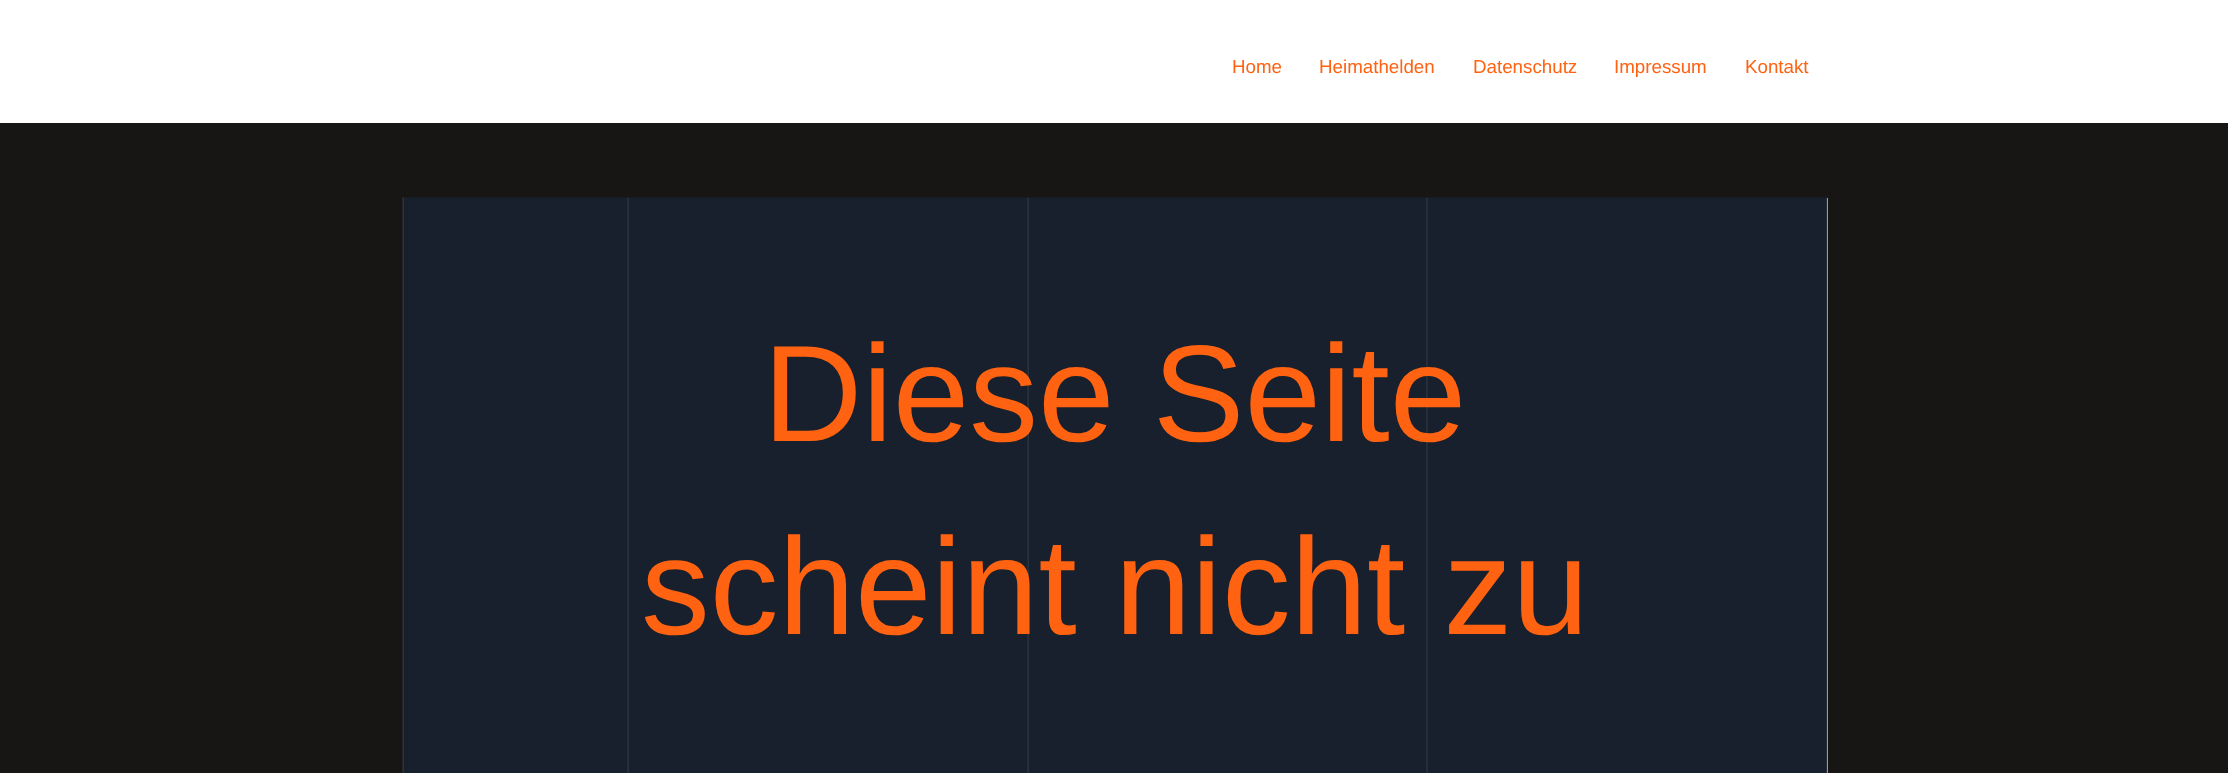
<svg xmlns="http://www.w3.org/2000/svg" width="2228" height="773" viewBox="0 0 2228 773">
  <rect width="100%" height="100%" fill="#171615"/>
  <path d="M0 0h2228v123H0z" fill="#fff"/>
  <path d="M1827 198h1v575H1827z" fill="#fff"/>
  <image x="402" y="197" width="1426" height="576" href="img/1.png"/>
  <g font-family="Liberation Sans" font-size="18.75" fill="#ff6210">
    <text x="1232" y="73">Home</text>
    <text x="1319" y="73">Heimathelden</text>
    <text x="1473" y="73">Datenschutz</text>
    <text x="1614" y="73">Impressum</text>
    <text x="1745" y="73">Kontakt</text>
  </g>
  <g font-family="Liberation Sans" font-size="137.5" fill="#ff6210">
    <text x="763" y="441">Diese Seite</text>
    <text x="641" y="634">scheint nicht zu</text>
  </g>
</svg>
